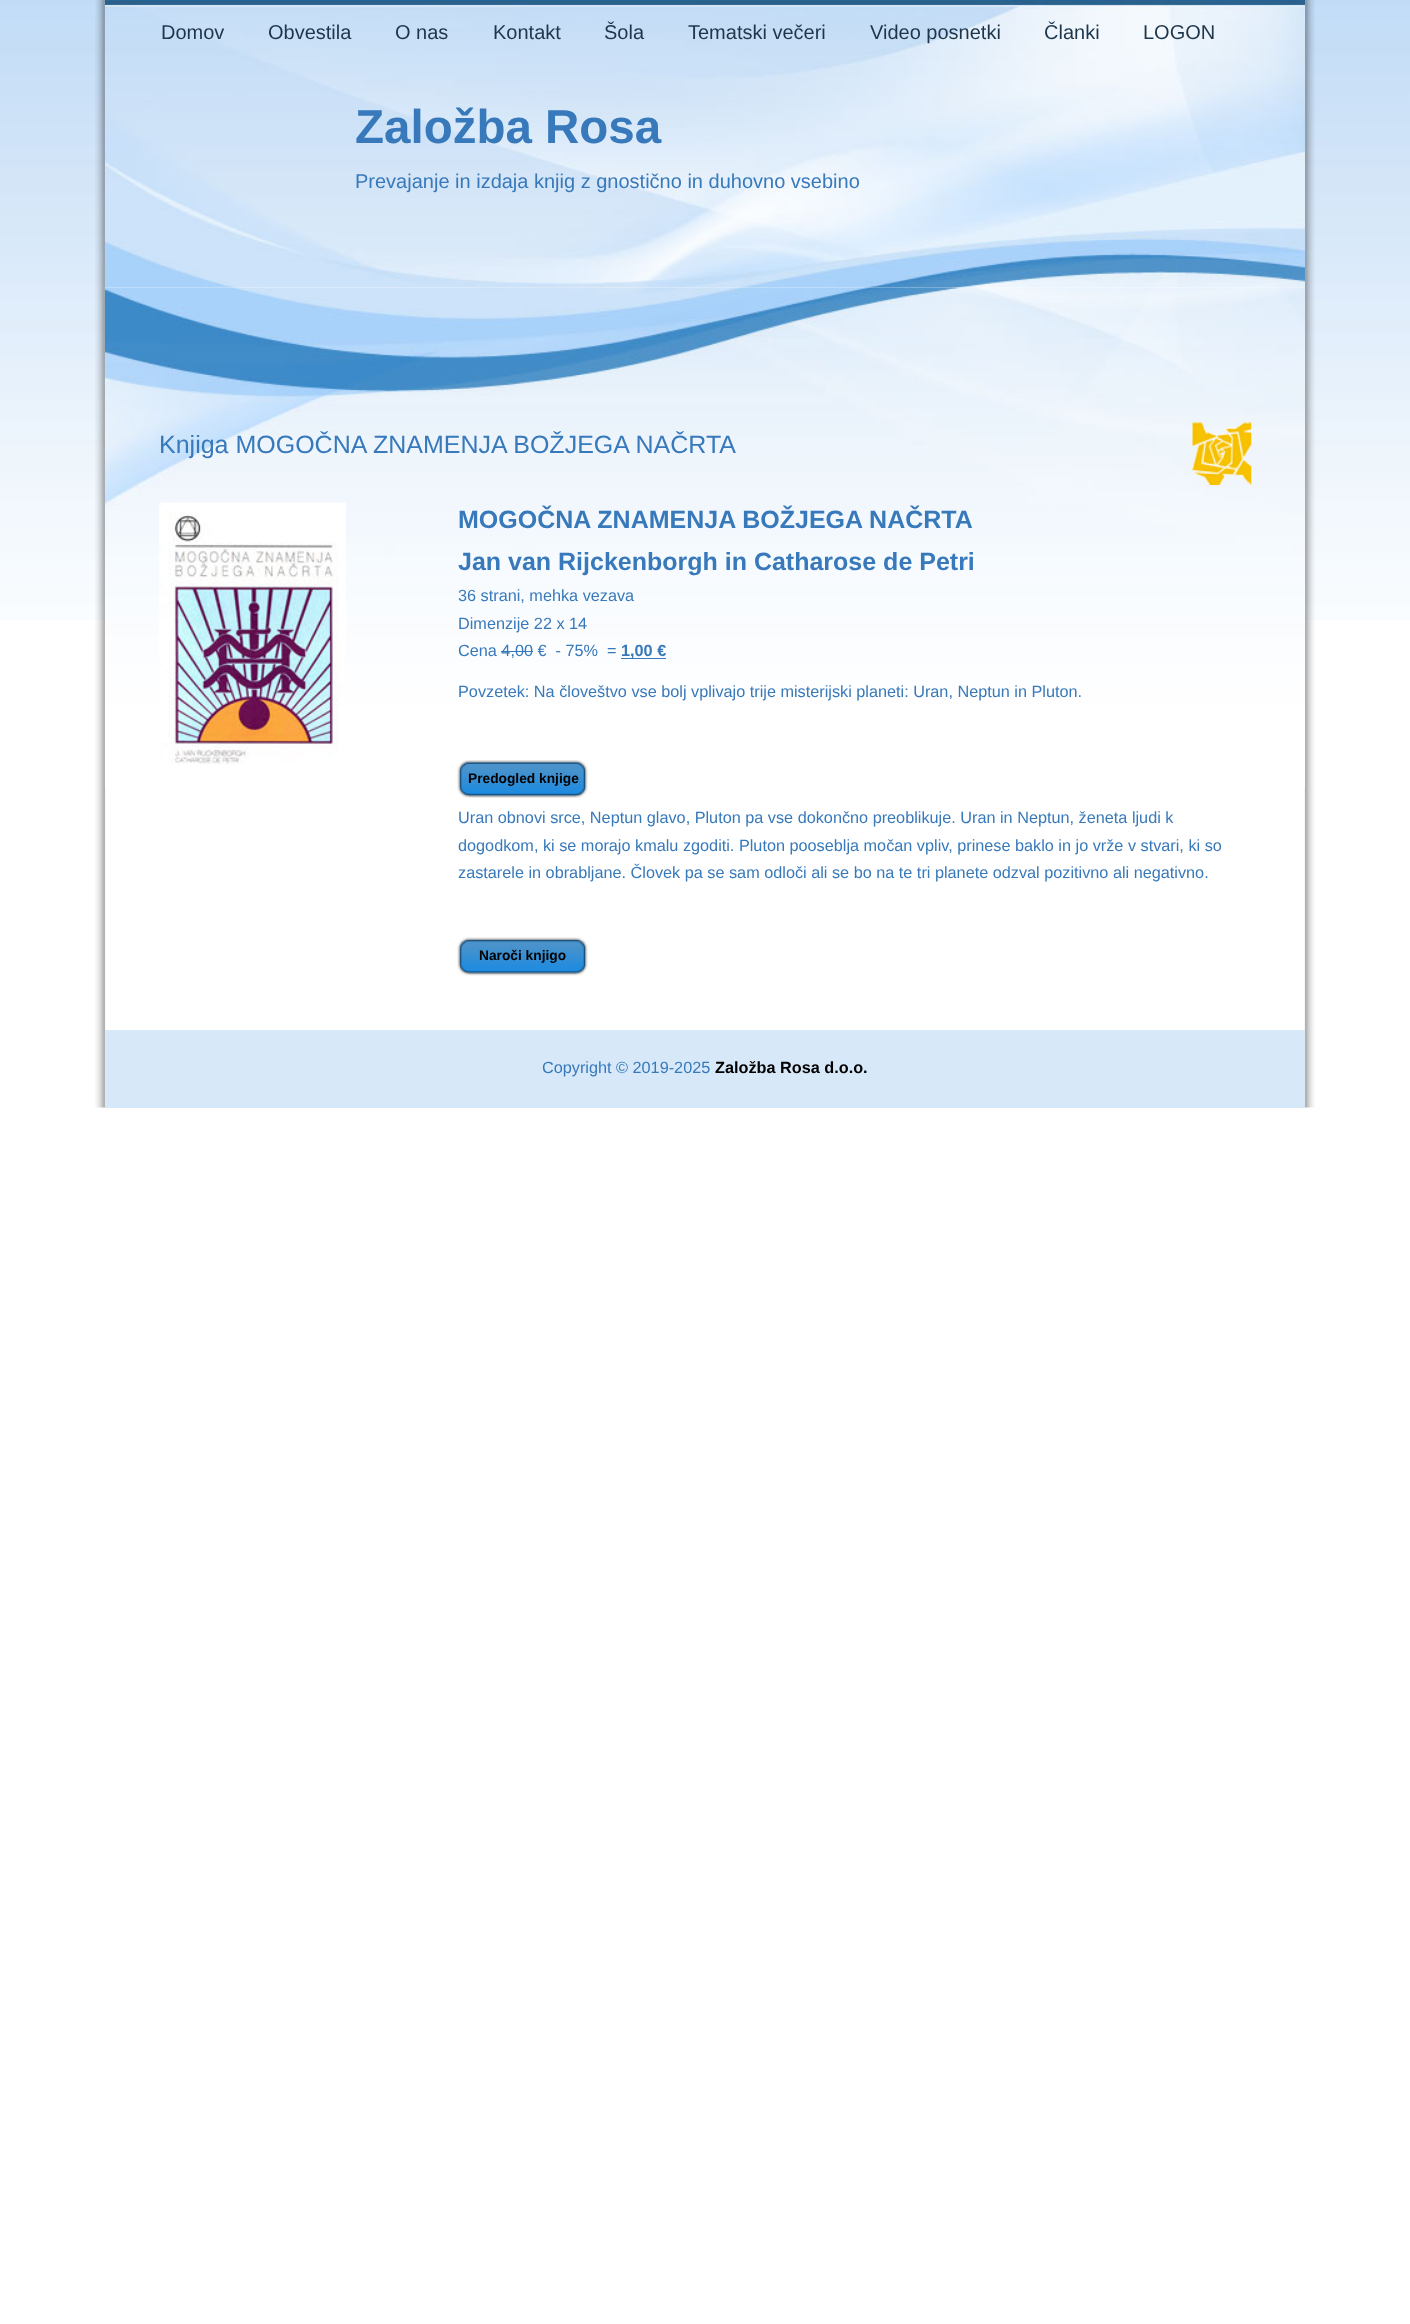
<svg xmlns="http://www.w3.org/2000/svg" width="1410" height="2324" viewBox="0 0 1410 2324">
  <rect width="100%" height="100%" fill="#fff"/>
  <image x="0" y="0" width="1410" height="620" href="img/1.png"/>
  <image x="95" y="0" width="1220" height="1108" href="img/2.png"/>
  <image x="105" y="0" width="1200" height="288" href="img/3.png"/>
  <image x="105" y="287" width="1200" height="88" href="img/4.png"/>
  <image x="105" y="375" width="1200" height="413" href="img/5.png"/>
  <image x="1192" y="422" width="60" height="63" href="img/6.png"/>
  <image x="159" y="502" width="187" height="263" href="img/7.png"/>
  <path d="M621 658h45v1H621z" fill="#3779ba"/>
  <path d="M501 651h32v1H501z" fill="#3779ba"/>
  <image x="457" y="760" width="131" height="38" href="img/8.png"/>
  <image x="457" y="937" width="131" height="39" href="img/9.png"/>
  <path d="M105 1030h1200v78H105z" fill="#d7e8f9"/>
  <g font-family="Liberation Sans" font-size="20" fill="#1d364b">
    <text x="161" y="39">Domov</text>
    <text x="268" y="39">Obvestila</text>
    <text x="395" y="39">O nas</text>
    <text x="493" y="39">Kontakt</text>
    <text x="604" y="39">Šola</text>
    <text x="688" y="39">Tematski večeri</text>
    <text x="870" y="39">Video posnetki</text>
    <text x="1044" y="39">Članki</text>
    <text x="1143" y="39">LOGON</text>
  </g>
  <text x="355" y="143" font-family="Liberation Sans" font-size="47.5" font-weight="bold" fill="#3779ba">Založba Rosa</text>
  <text x="355" y="188" font-family="Liberation Sans" font-size="20" fill="#3779ba">Prevajanje in izdaja knjig z gnostično in duhovno vsebino</text>
  <text x="159" y="453" font-family="Liberation Sans" font-size="25" fill="#3779ba">Knjiga MOGOČNA ZNAMENJA BOŽJEGA NAČRTA</text>
  <g font-family="Liberation Sans" font-size="25" font-weight="bold" fill="#3779ba">
    <text x="458" y="528">MOGOČNA ZNAMENJA BOŽJEGA NAČRTA</text>
    <text x="458" y="570">Jan van Rijckenborgh in Catharose de Petri</text>
  </g>
  <g font-family="Liberation Sans" font-size="16.25" fill="#3779ba">
    <text x="458" y="601">36 strani, mehka vezava</text>
    <text x="458" y="629">Dimenzije 22 x 14</text>
    <text x="458" y="656" xml:space="preserve">Cena 4,00 €  - 75%</text>
    <text x="607" y="656">=</text>
  </g>
  <text x="621" y="656" font-family="Liberation Sans" font-size="16.25" font-weight="bold" fill="#3779ba">1,00 €</text>
  <text x="458" y="697" font-family="Liberation Sans" font-size="16.25" fill="#3779ba">Povzetek: Na človeštvo vse bolj vplivajo trije misterijski planeti: Uran, Neptun in Pluton.</text>
  <text x="468" y="783" font-family="Liberation Sans" font-size="13.75" font-weight="bold" fill="#000">Predogled knjige</text>
  <g font-family="Liberation Sans" font-size="16.25" fill="#3779ba">
    <text x="458" y="823">Uran obnovi srce, Neptun glavo, Pluton pa vse dokončno preoblikuje. Uran in Neptun, ženeta ljudi k</text>
    <text x="458" y="851">dogodkom, ki se morajo kmalu zgoditi. Pluton pooseblja močan vpliv, prinese baklo in jo vrže v stvari, ki so</text>
    <text x="458" y="878">zastarele in obrabljane. Človek pa se sam odloči ali se bo na te tri planete odzval pozitivno ali negativno.</text>
  </g>
  <text x="479" y="960" font-family="Liberation Sans" font-size="13.75" font-weight="bold" fill="#000">Naroči knjigo</text>
  <text x="542" y="1073" font-family="Liberation Sans" font-size="16.25" fill="#3779ba">Copyright © 2019-2025</text>
  <text x="715" y="1073" font-family="Liberation Sans" font-size="16.25" font-weight="bold" fill="#000">Založba Rosa d.o.o.</text>
</svg>
